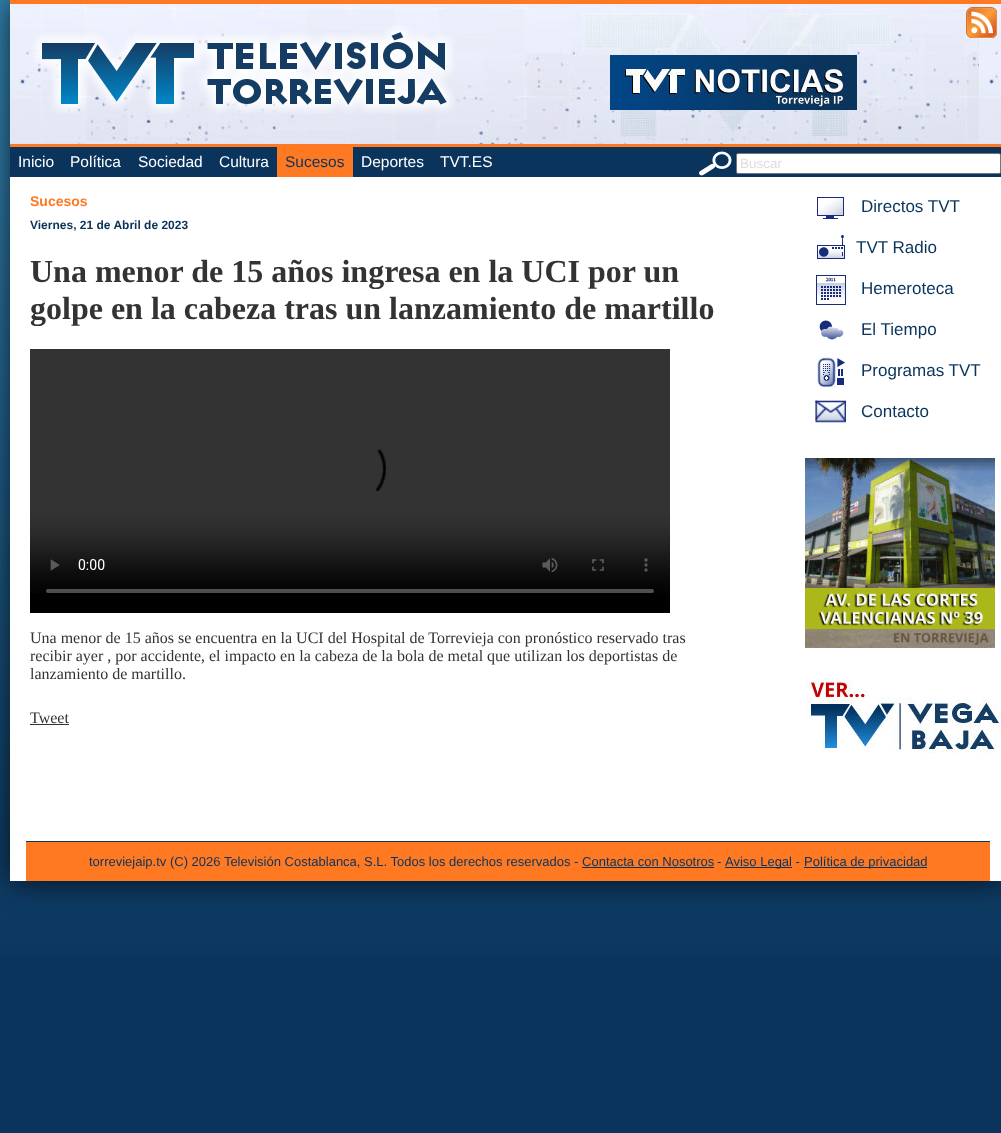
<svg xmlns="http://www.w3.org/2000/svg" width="1001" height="1133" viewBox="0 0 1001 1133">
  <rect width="100%" height="100%" fill="#0a345c"/>
  <image x="0" y="0" width="1001" height="957" href="img/1.png"/>
  <path d="M10 0h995v881H10z" fill="#000000bf" filter="blur(15px)"/>
  <path d="M10 177h991v704H10z" fill="#fff"/>
  <image x="10" y="4" width="991" height="140" href="img/2.png"/>
  <path d="M10 0h991v4H10z" fill="#ff7923"/>
  <image x="33" y="25" width="422" height="89" href="img/3.png"/>
  <image x="966" y="7" width="31" height="31" href="img/4.png"/>
  <path d="M10 147h991v30H10z" fill="#0a345c"/>
  <path d="M10 144h991v3H10z" fill="#ff7923"/>
  <path d="M277 147h76v30H277z" fill="#ff7923"/>
  <image x="699" y="151" width="33" height="25" href="img/5.png"/>
  <rect x="736.5" y="153.5" width="264" height="20" rx="1.5" fill="#fff" stroke="#767676"/>
  <path d="M30 593h640v20H30z" fill="#000"/>
  <image x="30" y="349" width="640" height="244" href="img/6.png"/>
  <path d="M30 724h39v1H30z" fill="#333"/>
  <image x="817" y="197" width="28" height="22" href="img/7.png"/>
  <image x="817" y="234" width="29" height="25" href="img/8.png"/>
  <image x="816" y="273" width="30" height="32" href="img/9.png"/>
  <image x="819" y="320" width="25" height="20" href="img/10.png"/>
  <image x="817" y="357" width="29" height="30" href="img/11.png"/>
  <image x="815" y="397" width="31" height="26" href="img/12.png"/>
  <image x="805" y="458" width="190" height="190" href="img/13.png"/>
  <image x="805" y="681" width="196" height="72" href="img/14.png"/>
  <path d="M26 842h964v39H26z" fill="#ff7923"/>
  <path d="M26 841h964v1H26z" fill="#0a345c"/>
  <path d="M725 867h67v1H725z" fill="#0a345c"/>
  <path d="M804 867h123v1H804z" fill="#0a345c"/>
  <path d="M582 867h132v1H582z" fill="#0a345c"/>
  <g font-family="Liberation Sans" font-size="15.5" fill="#fff">
    <text x="18" y="167">Inicio</text>
    <text x="70" y="167">Política</text>
    <text x="138" y="167">Sociedad</text>
    <text x="219" y="167">Cultura</text>
  </g>
  <text x="285" y="167" font-family="Liberation Sans" font-size="15.5" fill="#0a345c">Sucesos</text>
  <g font-family="Liberation Sans" font-size="15.5" fill="#fff">
    <text x="361" y="167">Deportes</text>
    <text x="440" y="167">TVT.ES</text>
  </g>
  <text x="740" y="168" font-family="Liberation Sans" font-size="13.5" fill="#ddd">Buscar</text>
  <text x="30" y="206" font-family="Liberation Sans" font-size="14" font-weight="bold" fill="#ff7923">Sucesos</text>
  <text x="30" y="229" font-family="Liberation Sans" font-size="12" font-weight="bold" fill="#0a345c">Viernes, 21 de Abril de 2023</text>
  <g font-family="Liberation Serif" font-size="32" font-weight="bold" fill="#333">
    <text x="30" y="282">Una menor de 15 años ingresa en la UCI por un</text>
    <text x="30" y="319">golpe en la cabeza tras un lanzamiento de martillo</text>
  </g>
  <g font-family="Liberation Serif" font-size="16" fill="#333">
    <text x="30" y="643">Una menor de 15 años se encuentra en la UCI del Hospital de Torrevieja con pronóstico reservado tras</text>
    <text x="30" y="661">recibir ayer , por accidente, el impacto en la cabeza de la bola de metal que utilizan los deportistas de</text>
    <text x="30" y="679">lanzamiento de martillo.</text>
    <text x="30" y="723">Tweet</text>
  </g>
  <g font-family="Liberation Sans" font-size="17" fill="#0a345c">
    <text x="861" y="212">Directos TVT</text>
    <text x="856" y="253">TVT Radio</text>
    <text x="861" y="294">Hemeroteca</text>
    <text x="861" y="335">El Tiempo</text>
    <text x="861" y="376">Programas TVT</text>
    <text x="861" y="417">Contacto</text>
  </g>
  <g font-family="Liberation Sans" font-size="13" fill="#0a345c">
    <text x="89" y="866">torreviejaip.tv (C) 2026 Televisión Costablanca, S.L. Todos los derechos reservados - Contacta con Nosotros</text>
    <text x="717" y="866">-</text>
    <text x="725" y="866">Aviso Legal -</text>
    <text x="804" y="866">Política de privacidad</text>
  </g>
</svg>
